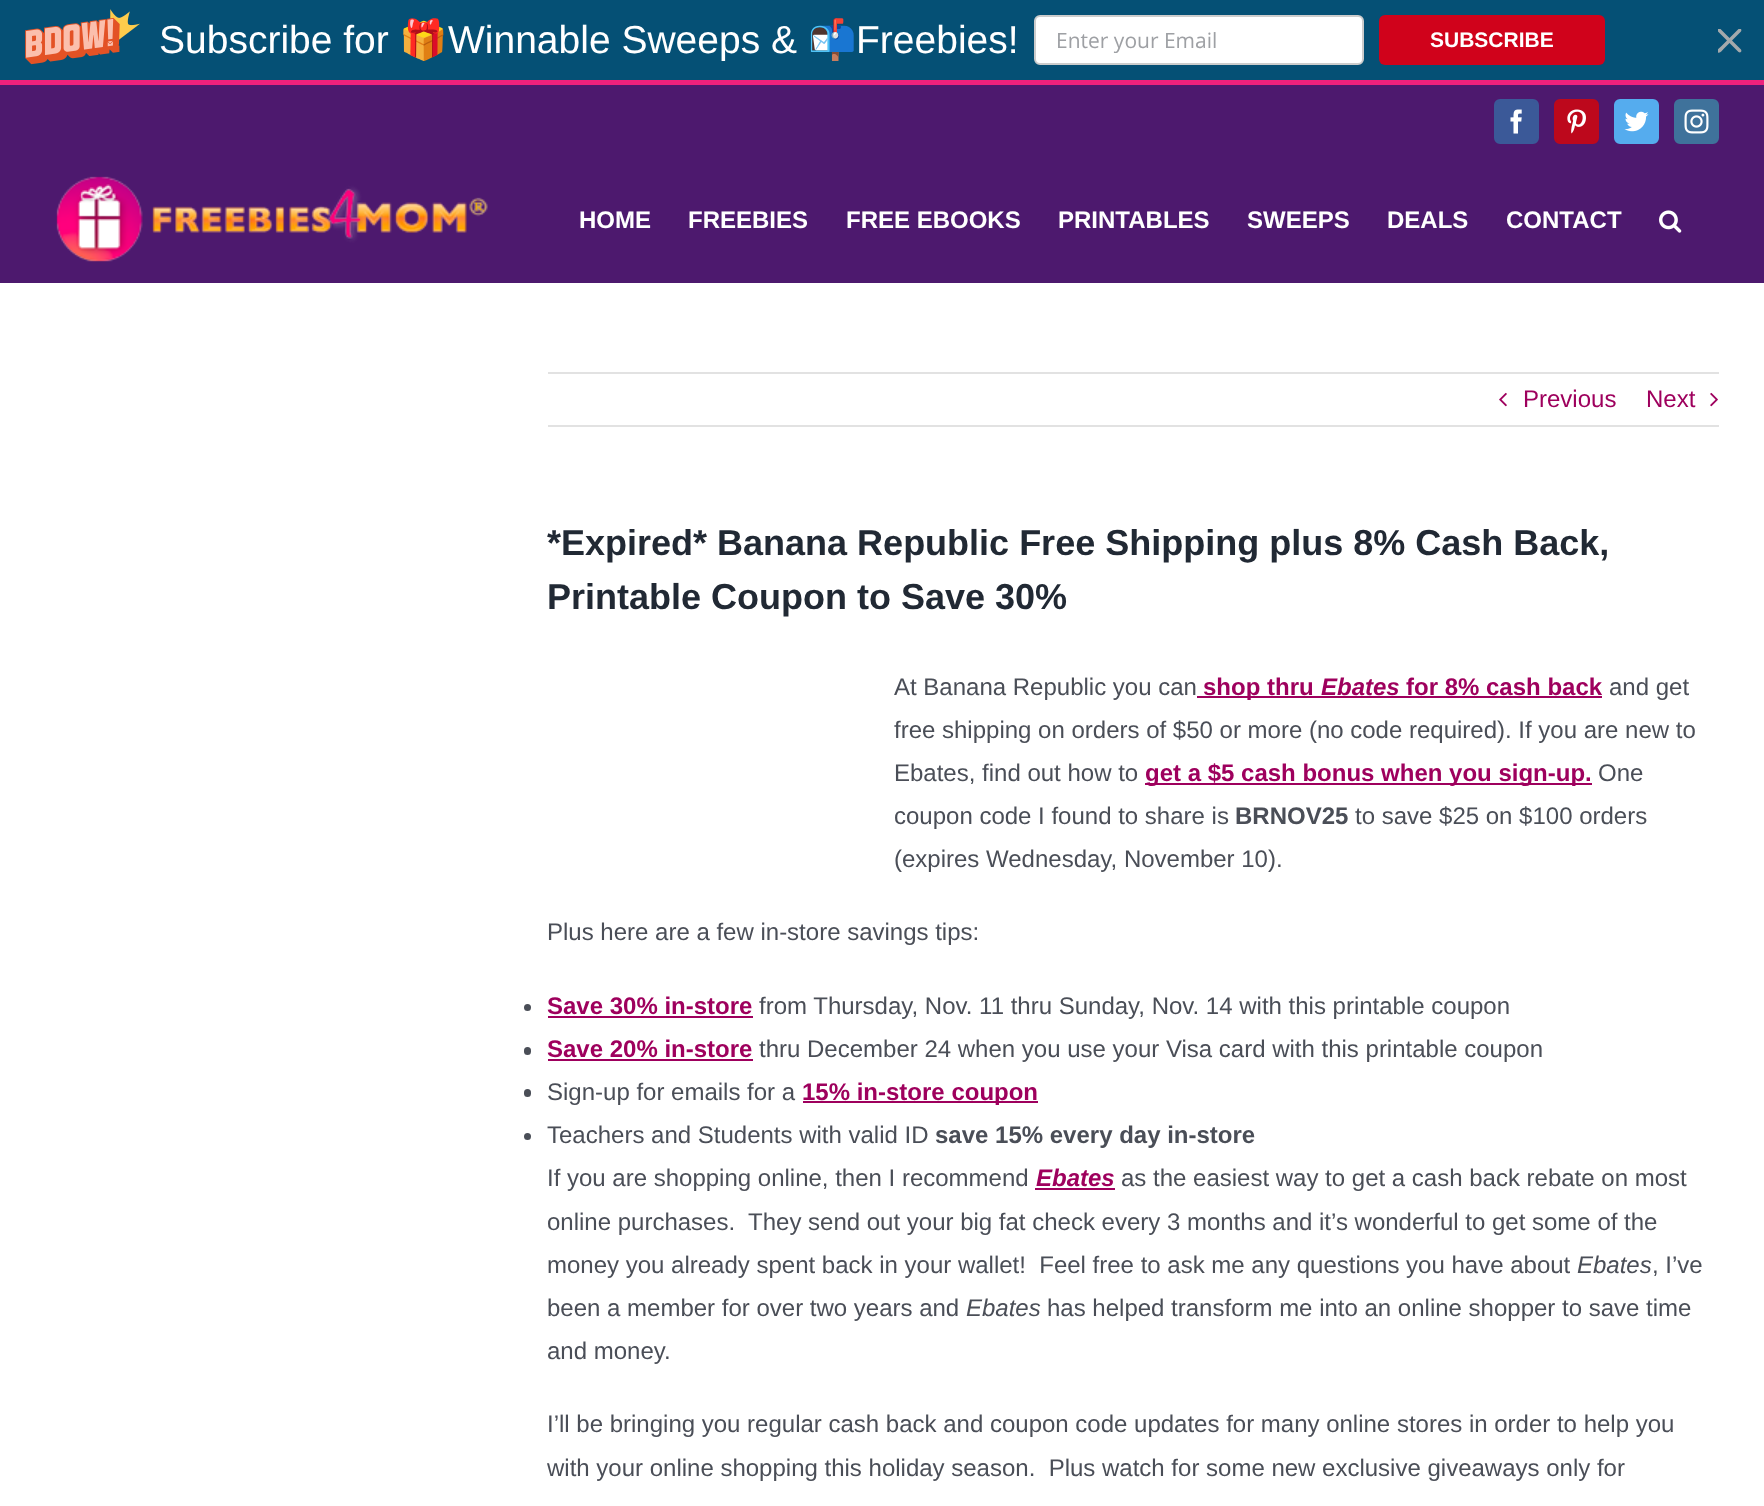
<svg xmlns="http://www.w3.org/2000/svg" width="1764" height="1506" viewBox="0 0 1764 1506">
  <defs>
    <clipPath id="clip1"><path d="M1718 29h24v24H1718z"/></clipPath>
  </defs>
  <rect width="100%" height="100%" fill="#fff"/>
  <path d="M0 0h1764v80H0z" fill="#055075"/>
  <image x="25" y="9" width="115" height="56" href="img/1.png"/>
  <rect x="1035" y="16" width="328" height="48" rx="5" fill="#fff" stroke="#ccc" stroke-width="2"/>
  <rect x="1379" y="15" width="226" height="50" rx="6" fill="#d0021b"/>
  <g clip-path="url(#clip1)">
    <path d="M1729.5 38L1738.5 29C1739.5 28.5 1740 28.5 1741 29C1741.5 30 1741.5 30.5 1741 31.5L1732 40.5L1741 49.5C1741.5 50.5 1741.5 51 1741 52C1740 52.5 1739.5 52.5 1738.5 52L1729.5 43L1723.5 49C1722.5 50 1719.5 54.5 1717.5 52C1716 50 1720 47.5 1721 46.5L1727 40.5L1718 31.5C1717.5 30.5 1717.5 30 1718 29C1719 28.5 1719.5 28.5 1720.5 29Z" fill="#a4a9ac"/>
  </g>
  <path d="M0 85h1764v198H0z" fill="#4d196e"/>
  <path d="M0 80h1764v5H0z" fill="#ed217c"/>
  <rect x="1495" y="100" width="43" height="43" rx="5" fill="#3b5998" stroke="#3b5998" stroke-width="2"/>
  <image x="1510" y="109" width="12" height="25" href="img/2.png"/>
  <rect x="1555" y="100" width="43" height="43" rx="5" fill="#bd081c" stroke="#bd081c" stroke-width="2"/>
  <image x="1567" y="109" width="19" height="25" href="img/3.png"/>
  <rect x="1615" y="100" width="43" height="43" rx="5" fill="#55acee" stroke="#55acee" stroke-width="2"/>
  <image x="1624" y="111" width="25" height="21" href="img/4.png"/>
  <rect x="1675" y="100" width="43" height="43" rx="5" fill="#3f729b" stroke="#3f729b" stroke-width="2"/>
  <image x="1684" y="109" width="25" height="25" href="img/5.png"/>
  <image x="56" y="176" width="432" height="86" href="img/6.png"/>
  <image x="1659" y="210" width="23" height="23" href="img/7.png"/>
  <path d="M548 372h1171v2H548z" fill="#e2e2e2"/>
  <path d="M548 425h1171v2H548z" fill="#e2e2e2"/>
  <image x="1499" y="392" width="8" height="15" href="img/8.png"/>
  <image x="1710" y="392" width="8" height="15" href="img/9.png"/>
  <path d="M1197 696h405v2H1197z" fill="#9e005d"/>
  <path d="M1145 783h447v2H1145z" fill="#9e005d"/>
  <circle cx="527.5" cy="1007.5" r="3.5" fill="#4a4e57"/>
  <path d="M548 1016h205v2H548z" fill="#9e005d"/>
  <rect x="524" y="1047" width="7" height="8" rx="3.5" fill="#4a4e57"/>
  <path d="M548 1059h205v2H548z" fill="#9e005d"/>
  <rect x="524" y="1089" width="7" height="8" rx="3.5" fill="#4a4e57"/>
  <path d="M803 1101h235v2H803z" fill="#9e005d"/>
  <circle cx="527.5" cy="1136.5" r="3.5" fill="#4a4e57"/>
  <path d="M1035 1188h80v2H1035z" fill="#9e005d"/>
  <text x="159" y="53" font-family="Liberation Sans" font-size="39" fill="#fff">Subscribe for</text>
  <text x="399" y="53" font-family="Noto Color Emoji" font-size="39" fill="#fff">🎁</text>
  <text x="448" y="53" font-family="Liberation Sans" font-size="39" fill="#fff">Winnable Sweeps &amp;</text>
  <text x="808" y="53" font-family="Noto Color Emoji" font-size="39" fill="#fff">📬</text>
  <text x="856" y="53" font-family="Liberation Sans" font-size="39" fill="#fff">Freebies!</text>
  <text x="1056" y="48" font-family="Open Sans" font-size="21" fill="#9ea0a4">Enter your Email</text>
  <text x="1430" y="47" font-family="Liberation Sans" font-size="21" font-weight="bold" fill="#fff">SUBSCRIBE</text>
  <g font-family="Liberation Sans" font-size="24" font-weight="bold" fill="#fff">
    <text x="579" y="228">HOME</text>
    <text x="688" y="228">FREEBIES</text>
    <text x="846" y="228">FREE EBOOKS</text>
    <text x="1058" y="228">PRINTABLES</text>
    <text x="1247" y="228">SWEEPS</text>
    <text x="1387" y="228">DEALS</text>
    <text x="1506" y="228">CONTACT</text>
  </g>
  <g font-family="Liberation Sans" font-size="24" fill="#9e005d">
    <text x="1523" y="407">Previous</text>
    <text x="1646" y="407">Next</text>
  </g>
  <g font-family="Liberation Sans" font-size="36" font-weight="bold" fill="#212934">
    <text x="547" y="555">*Expired* Banana Republic Free Shipping plus 8% Cash Back,</text>
    <text x="547" y="609">Printable Coupon to Save 30%</text>
  </g>
  <text x="894" y="695" font-family="Liberation Sans" font-size="24" fill="#4a4e57">At Banana Republic you can</text>
  <text x="1203" y="695" font-family="Liberation Sans" font-size="24" font-weight="bold" fill="#9e005d">shop thru</text>
  <text x="1321" y="695" font-family="Liberation Sans" font-size="24" font-weight="bold" font-style="italic" fill="#9e005d">Ebates</text>
  <text x="1406" y="695" font-family="Liberation Sans" font-size="24" font-weight="bold" fill="#9e005d">for 8% cash back</text>
  <g font-family="Liberation Sans" font-size="24" fill="#4a4e57">
    <text x="1609" y="695">and get</text>
    <text x="894" y="738">free shipping on orders of $50 or more (no code required). If you are new to</text>
    <text x="894" y="781">Ebates, find out how to</text>
  </g>
  <text x="1145" y="781" font-family="Liberation Sans" font-size="24" font-weight="bold" fill="#9e005d">get a $5 cash bonus when you sign-up.</text>
  <g font-family="Liberation Sans" font-size="24" fill="#4a4e57">
    <text x="1598" y="781">One</text>
    <text x="894" y="824">coupon code I found to share is</text>
  </g>
  <text x="1235" y="824" font-family="Liberation Sans" font-size="24" font-weight="bold" fill="#4a4e57">BRNOV25</text>
  <g font-family="Liberation Sans" font-size="24" fill="#4a4e57">
    <text x="1355" y="824">to save $25 on $100 orders</text>
    <text x="894" y="867">(expires Wednesday, November 10).</text>
    <text x="547" y="940">Plus here are a few in-store savings tips:</text>
  </g>
  <text x="547" y="1014" font-family="Liberation Sans" font-size="24" font-weight="bold" fill="#9e005d">Save 30% in-store</text>
  <text x="759" y="1014" font-family="Liberation Sans" font-size="24" fill="#4a4e57">from Thursday, Nov. 11 thru Sunday, Nov. 14 with this printable coupon</text>
  <text x="547" y="1057" font-family="Liberation Sans" font-size="24" font-weight="bold" fill="#9e005d">Save 20% in-store</text>
  <g font-family="Liberation Sans" font-size="24" fill="#4a4e57">
    <text x="759" y="1057">thru December 24 when you use your Visa card with this printable coupon</text>
    <text x="547" y="1100">Sign-up for emails for a</text>
  </g>
  <text x="802" y="1100" font-family="Liberation Sans" font-size="24" font-weight="bold" fill="#9e005d">15% in-store coupon</text>
  <text x="547" y="1143" font-family="Liberation Sans" font-size="24" fill="#4a4e57">Teachers and Students with valid ID</text>
  <text x="935" y="1143" font-family="Liberation Sans" font-size="24" font-weight="bold" fill="#4a4e57">save 15% every day in-store</text>
  <text x="547" y="1186" font-family="Liberation Sans" font-size="24" fill="#4a4e57">If you are shopping online, then I recommend</text>
  <text x="1036" y="1186" font-family="Liberation Sans" font-size="24" font-weight="bold" font-style="italic" fill="#9e005d">Ebates</text>
  <g font-family="Liberation Sans" font-size="24" fill="#4a4e57">
    <text x="1121" y="1186">as the easiest way to get a cash back rebate on most</text>
    <text x="547" y="1230" xml:space="preserve">online purchases.  They send out your big fat check every 3 months and it’s wonderful to get some of the</text>
    <text x="547" y="1273" xml:space="preserve">money you already spent back in your wallet!  Feel free to ask me any questions you have about</text>
  </g>
  <text x="1577" y="1273" font-family="Liberation Sans" font-size="24" font-style="italic" fill="#4a4e57">Ebates</text>
  <g font-family="Liberation Sans" font-size="24" fill="#4a4e57">
    <text x="1652" y="1273">, I’ve</text>
    <text x="547" y="1316">been a member for over two years and</text>
  </g>
  <text x="966" y="1316" font-family="Liberation Sans" font-size="24" font-style="italic" fill="#4a4e57">Ebates</text>
  <g font-family="Liberation Sans" font-size="24" fill="#4a4e57">
    <text x="1047" y="1316">has helped transform me into an online shopper to save time</text>
    <text x="547" y="1359">and money.</text>
    <text x="547" y="1432">I’ll be bringing you regular cash back and coupon code updates for many online stores in order to help you</text>
    <text x="547" y="1476" xml:space="preserve">with your online shopping this holiday season.  Plus watch for some new exclusive giveaways only for</text>
  </g>
</svg>
